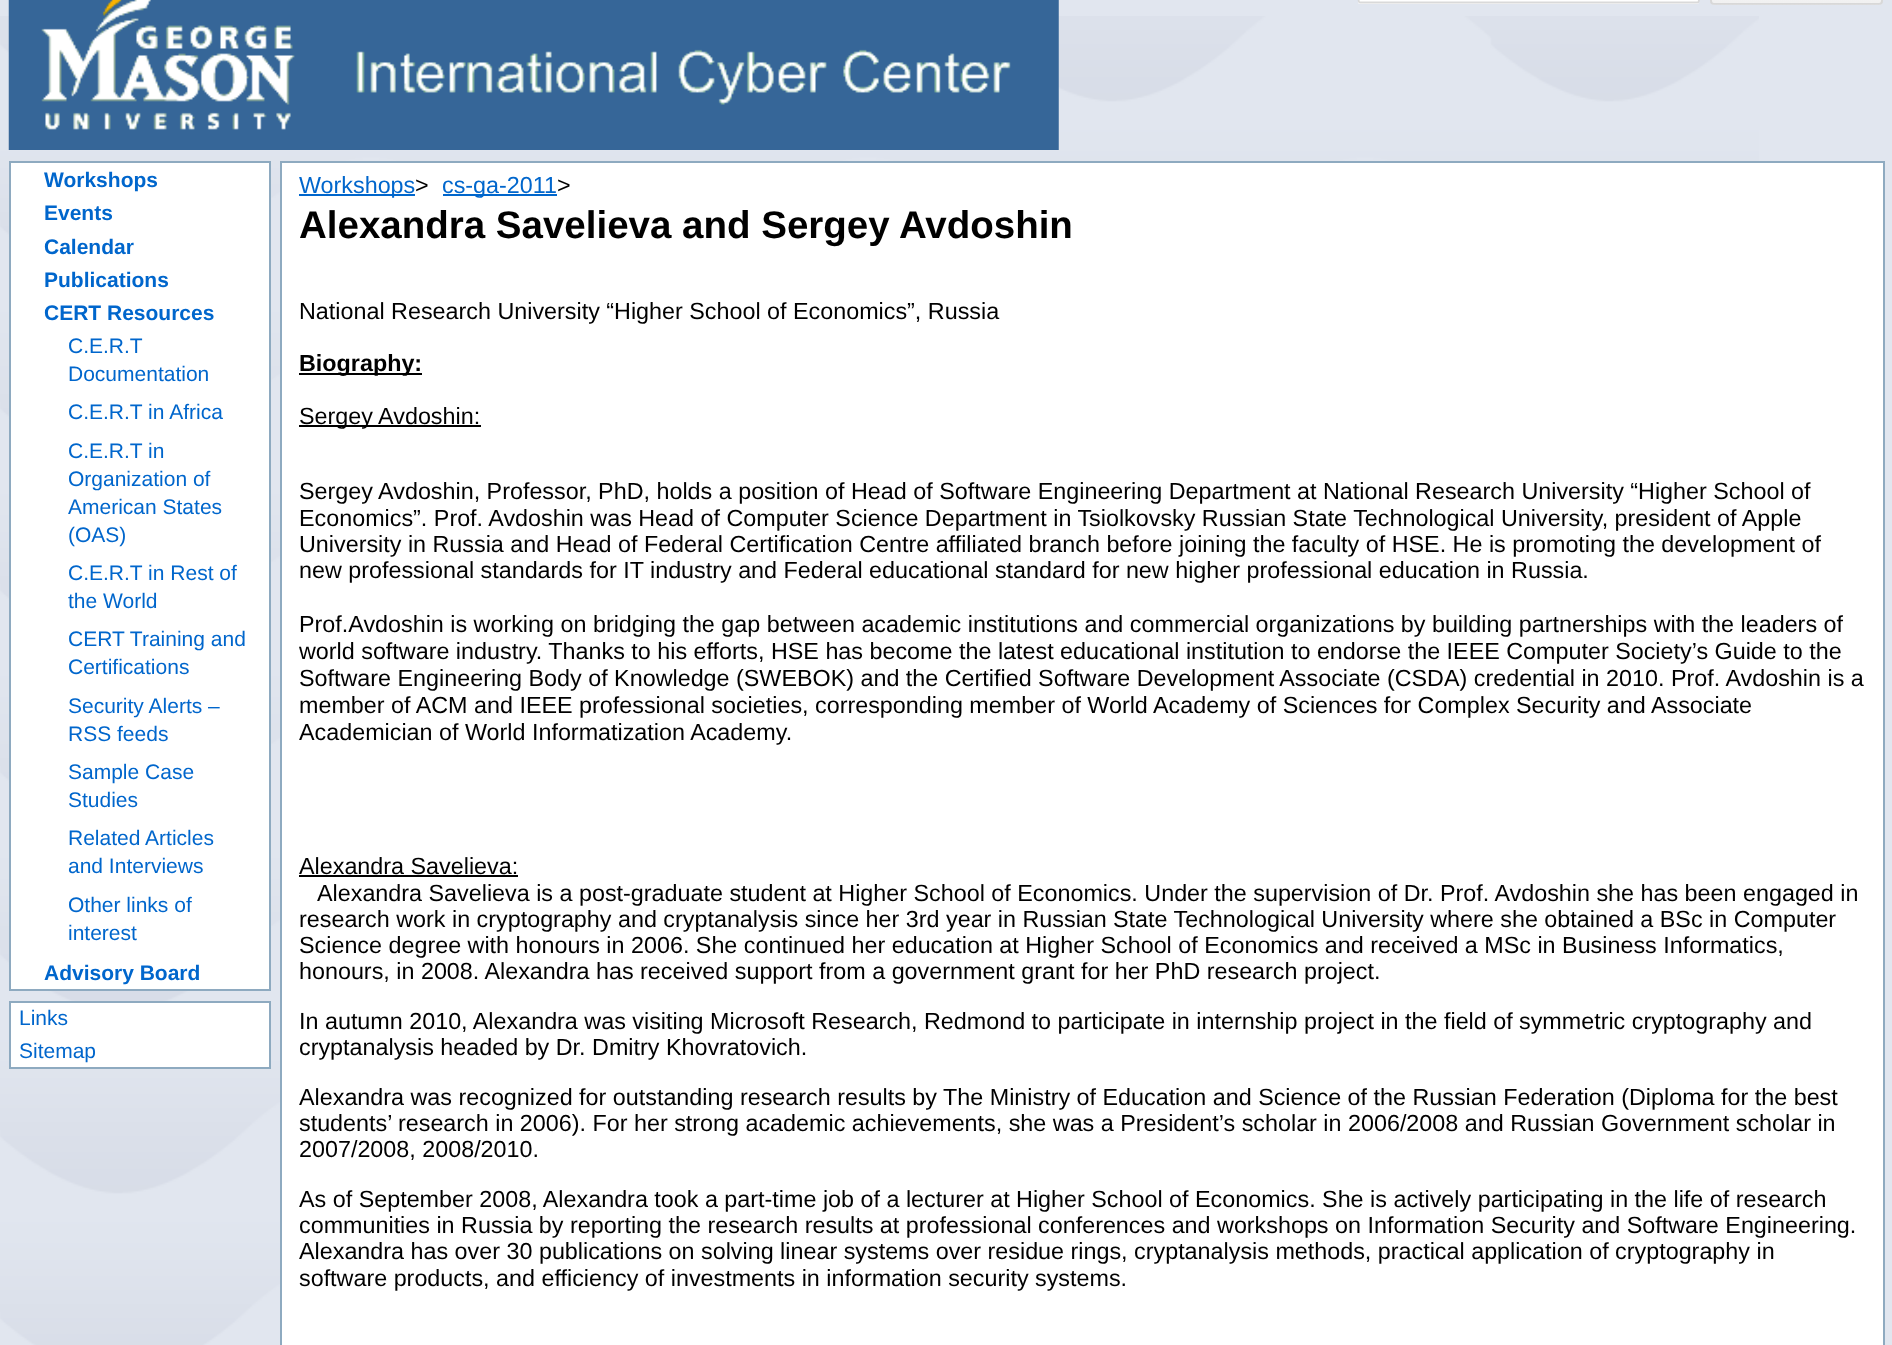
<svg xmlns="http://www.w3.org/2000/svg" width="1892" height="1345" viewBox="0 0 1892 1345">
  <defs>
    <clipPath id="clip1"><rect x="1710" y="-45" width="173" height="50" rx="4"/></clipPath>
    <linearGradient id="g1" gradientUnits="userSpaceOnUse" x1="1796" y1="-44" x2="1796" y2="3.5"><stop offset="0" stop-color="#f5f5f5"/><stop offset="1" stop-color="#f1f1f1"/></linearGradient>
    <linearGradient id="g2" gradientUnits="userSpaceOnUse" x1="1796" y1="3.5" x2="1796" y2="51"><stop offset="0" stop-color="#f5f5f5"/><stop offset="1" stop-color="#f1f1f1"/></linearGradient>
  </defs>
  <rect width="100%" height="100%" fill="#e1e6ef"/>
  <image x="0" y="16" width="1759" height="1329" href="img/1.png"/>
  <image x="8" y="0" width="1051" height="150" href="img/2.png"/>
  <rect x="1358" y="-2" width="341" height="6" rx="2" fill="#fff"/>
  <path d="M1698-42.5L1698.5-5.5C1698.5-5.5 1700 2.5 1697.5 2.5H1360C1357.5 2.5 1359-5.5 1359-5.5V-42.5" fill="none" stroke="#d9d9d9" stroke-width="1.8"/>
  <g clip-path="url(#clip1)">
    <path d="M1710 0h173v4H1710z" fill="url(#g1)"/>
    <path d="M1710 4h173v1H1710z" fill="url(#g2)"/>
  </g>
  <rect x="1711" y="-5" width="171" height="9" rx="3" fill="none" stroke="#0000001a" stroke-width="2"/>
  <path d="M10 162h260v828H10z" fill="#fff" stroke="#8eaac0" stroke-width="2"/>
  <path d="M10 1002h260v66H10z" fill="#fff" stroke="#8eaac0" stroke-width="2"/>
  <path d="M281 162h1603v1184H281z" fill="#fff" stroke="#8eaac0" stroke-width="2"/>
  <path d="M299 194h116v2H299z" fill="#06c"/>
  <path d="M443 194h114v2H443z" fill="#06c"/>
  <path d="M299 373h123v2H299z" fill="#000"/>
  <path d="M299 425h182v2H299z" fill="#000"/>
  <path d="M299 875h219v2H299z" fill="#000"/>
  <g font-family="Liberation Sans" font-size="21" font-weight="bold" fill="#06c">
    <text x="44" y="187">Workshops</text>
    <text x="44" y="220">Events</text>
    <text x="44" y="254">Calendar</text>
    <text x="44" y="287">Publications</text>
    <text x="44" y="320">CERT Resources</text>
  </g>
  <g font-family="Liberation Sans" font-size="21" fill="#06c">
    <text x="68" y="353">C.E.R.T</text>
    <text x="68" y="381">Documentation</text>
    <text x="68" y="419">C.E.R.T in Africa</text>
    <text x="68" y="458">C.E.R.T in</text>
    <text x="68" y="486">Organization of</text>
    <text x="68" y="514">American States</text>
    <text x="68" y="542">(OAS)</text>
    <text x="68" y="580">C.E.R.T in Rest of</text>
    <text x="68" y="608">the World</text>
    <text x="68" y="646">CERT Training and</text>
    <text x="68" y="674">Certifications</text>
    <text x="68" y="713">Security Alerts –</text>
    <text x="68" y="741">RSS feeds</text>
    <text x="68" y="779">Sample Case</text>
    <text x="68" y="807">Studies</text>
    <text x="68" y="845">Related Articles</text>
    <text x="68" y="873">and Interviews</text>
    <text x="68" y="912">Other links of</text>
    <text x="68" y="940">interest</text>
  </g>
  <text x="44" y="980" font-family="Liberation Sans" font-size="21" font-weight="bold" fill="#06c">Advisory Board</text>
  <g font-family="Liberation Sans" font-size="21" fill="#06c">
    <text x="19" y="1025">Links</text>
    <text x="19" y="1058">Sitemap</text>
  </g>
  <text x="299" y="193" font-family="Liberation Sans" font-size="23.33" fill="#06c">Workshops</text>
  <text x="415" y="193" font-family="Liberation Sans" font-size="23.33" fill="#000"> &gt; </text>
  <text x="442" y="193" font-family="Liberation Sans" font-size="23.33" fill="#06c">cs-ga-2011</text>
  <text x="557" y="193" font-family="Liberation Sans" font-size="23.33" fill="#000"> &gt; </text>
  <text x="299" y="238" font-family="Liberation Sans" font-size="38.5" font-weight="bold" fill="#000">Alexandra Savelieva and Sergey Avdoshin</text>
  <text x="299" y="319" font-family="Liberation Sans" font-size="23.33" fill="#000">National Research University “Higher School of Economics”, Russia</text>
  <text x="299" y="371" font-family="Liberation Sans" font-size="23.33" font-weight="bold" fill="#000">Biography:</text>
  <g font-family="Liberation Sans" font-size="23.33" fill="#000">
    <text x="299" y="424">Sergey Avdoshin:</text>
    <text x="299" y="499">Sergey Avdoshin, Professor, PhD, holds a position of Head of Software Engineering Department at National Research University “Higher School of</text>
    <text x="299" y="526">Economics”. Prof. Avdoshin was Head of Computer Science Department in Tsiolkovsky Russian State Technological University, president of Apple</text>
    <text x="299" y="552">University in Russia and Head of Federal Certification Centre affiliated branch before joining the faculty of HSE. He is promoting the development of</text>
    <text x="299" y="578">new professional standards for IT industry and Federal educational standard for new higher professional education in Russia.</text>
    <text x="299" y="632">Prof.Avdoshin is working on bridging the gap between academic institutions and commercial organizations by building partnerships with the leaders of</text>
    <text x="299" y="659">world software industry. Thanks to his efforts, HSE has become the latest educational institution to endorse the IEEE Computer Society’s Guide to the</text>
    <text x="299" y="686">Software Engineering Body of Knowledge (SWEBOK) and the Certified Software Development Associate (CSDA) credential in 2010</text>
    <text x="1658" y="686">. Prof. Avdoshin is a</text>
    <text x="299" y="713">member of ACM and IEEE professional societies, corresponding member of World Academy of Sciences for Complex Security and Associate</text>
    <text x="299" y="740">Academician of World Informatization Academy.</text>
    <text x="299" y="874">Alexandra Savelieva:</text>
    <text x="317" y="901">Alexandra Savelieva is a post-graduate student at Higher School of Economics. Under the supervision of Dr. Prof. Avdoshin she has been engaged in</text>
    <text x="299" y="927">research work in cryptography and cryptanalysis since her 3rd year in Russian</text>
    <text x="1113" y="927">State Technological University where she obtained a BSc in Computer</text>
    <text x="299" y="953">Science degree with honours in 2006. She continued her education at Higher School of Economics and received a MSc in Business Informatics,</text>
    <text x="299" y="979">honours, in 2008. Alexandra has received support from a government grant for her PhD research project.</text>
    <text x="299" y="1029">In autumn 2010, Alexandra was visiting Microsoft Research, Redmond to participate in internship project in the field of</text>
    <text x="1519" y="1029">symmetric cryptography and</text>
    <text x="299" y="1055">cryptanalysis headed by Dr. Dmitry Khovratovich.</text>
    <text x="299" y="1105">Alexandra was recognized for outstanding research results by The Ministry of Education and Science of the Russian Federation (Diploma for the best</text>
    <text x="299" y="1131">students’ research in 2006). For her strong academic achievements, she was a President’s scholar in 2006/2008 and Russian Government scholar in</text>
    <text x="299" y="1157">2007/2008, 2008/2010.</text>
    <text x="299" y="1207">As of September 2008, Alexandra took a part-time job of a lecturer at Higher School of Economics. She is actively participating in the life of research</text>
    <text x="299" y="1233">communities in Russia by reporting the research results at professional conferences and workshops on Information Security and Software Engineering.</text>
    <text x="299" y="1259">Alexandra has over 30 publications on solving linear systems over residue rings, cryptanalysis methods, practical application of cryptography in</text>
    <text x="299" y="1286">software products, and efficiency of investments in information security systems.</text>
  </g>
</svg>
